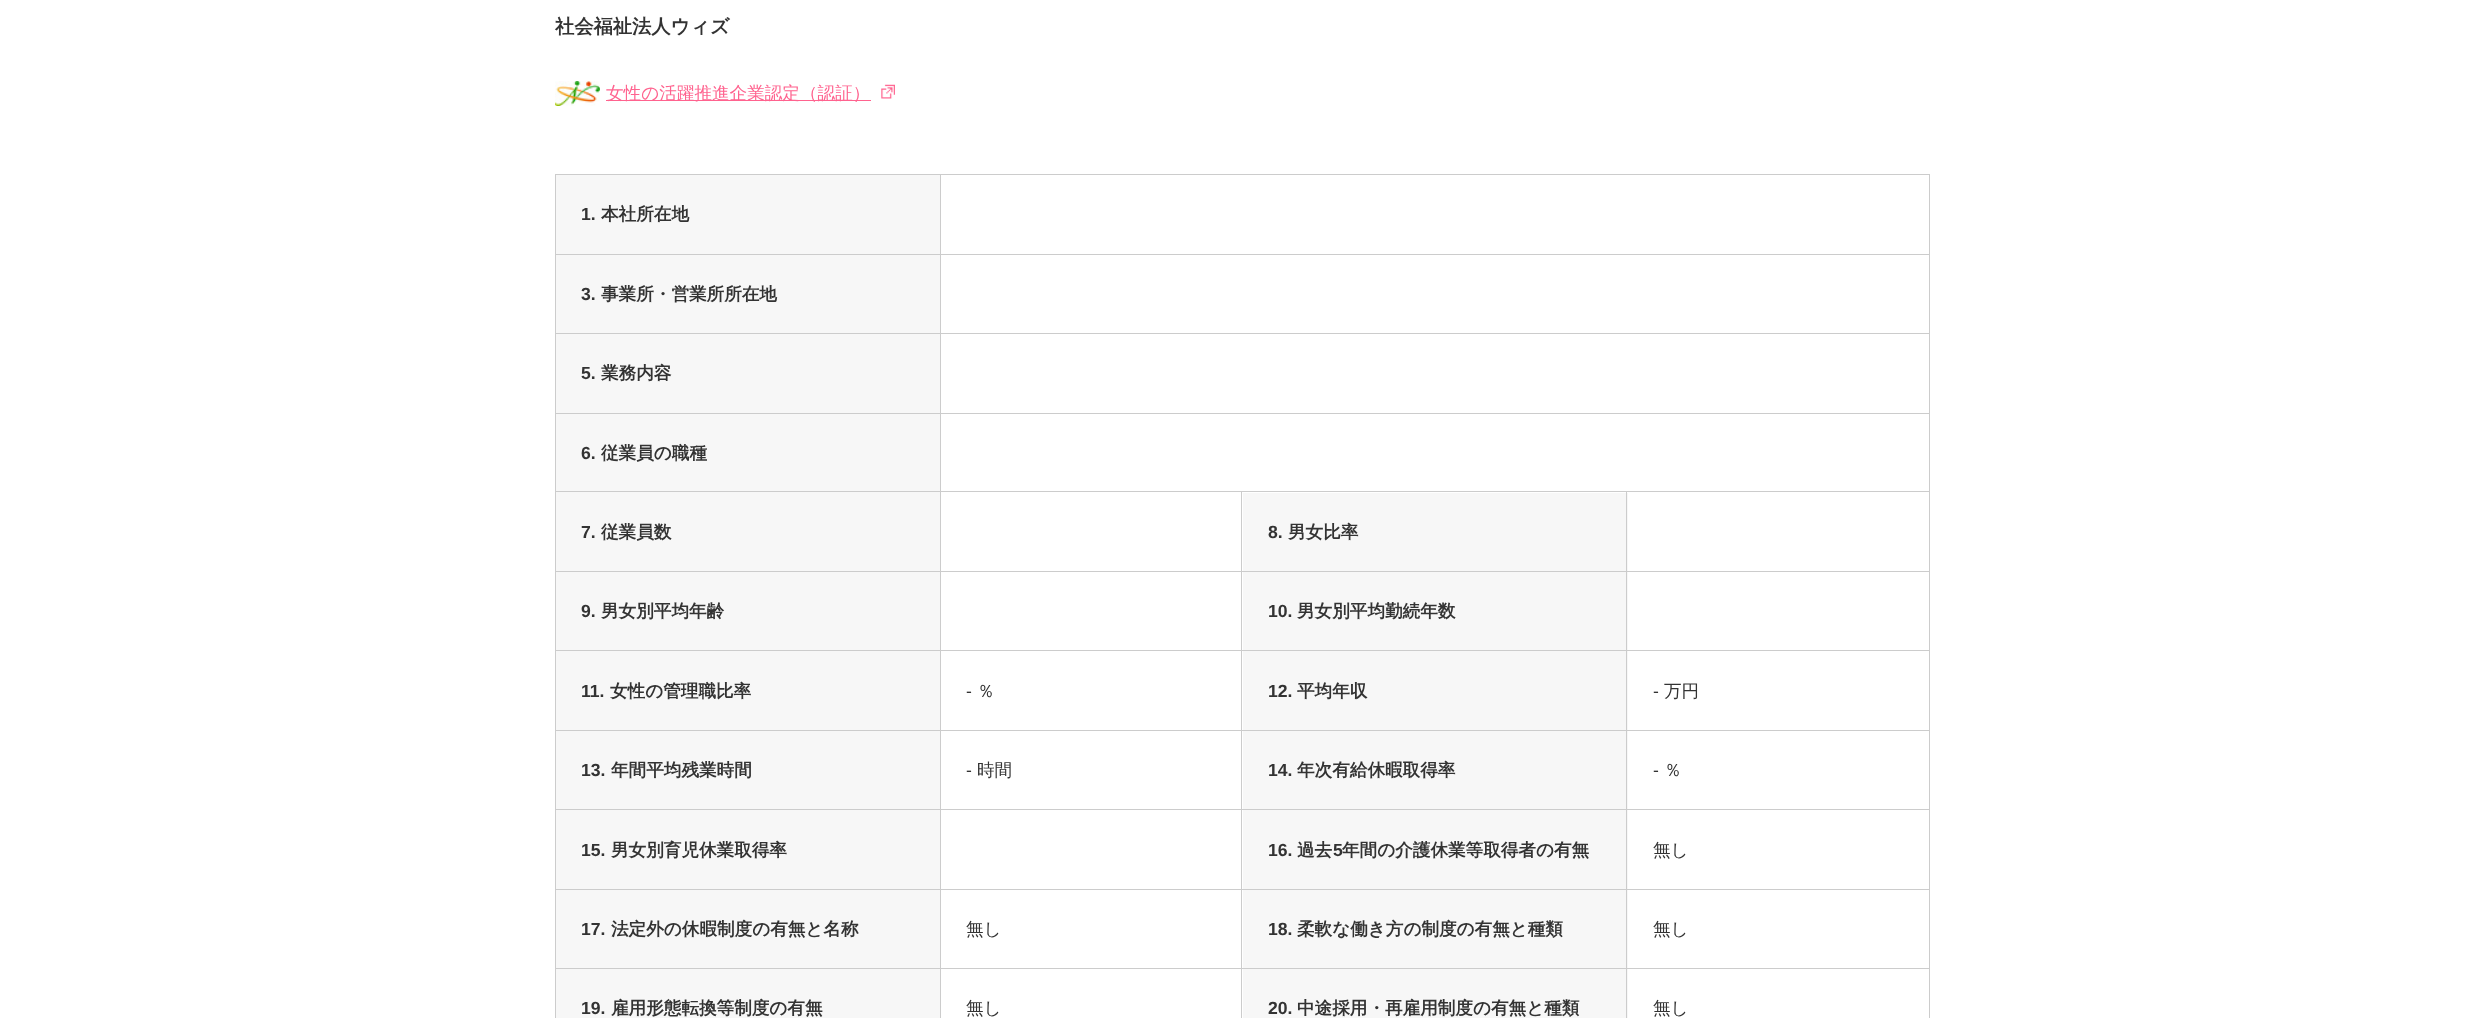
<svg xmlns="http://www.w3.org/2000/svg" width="2484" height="1018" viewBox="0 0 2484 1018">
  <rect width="100%" height="100%" fill="#fff"/>
  <image x="555" y="81" width="45" height="25" href="img/1.png"/>
  <path d="M606 100h265v1H606z" fill="#ff638f"/>
  <image x="881" y="84" width="14" height="15" href="img/2.png"/>
  <path d="M555 174h1375v1H555z" fill="#ccc"/>
  <path d="M1929 174h1v844H1929z" fill="#ccc"/>
  <path d="M555 174h1v844H555z" fill="#ccc"/>
  <path d="M556 175h384v79H556z" fill="#f7f7f7"/>
  <path d="M940 254h990v1H940z" fill="#ccc"/>
  <path d="M940 333h990v1H940z" fill="#ccc"/>
  <path d="M940 413h990v1H940z" fill="#ccc"/>
  <path d="M556 414h384v157H556z" fill="#f7f7f7"/>
  <path d="M1626 491h304v1H1626z" fill="#ccc"/>
  <path d="M1243 493h385v78H1243z" fill="#f7f7f7"/>
  <path d="M1243 572h385v78H1243z" fill="#f7f7f7"/>
  <path d="M1626 571h304v1H1626z" fill="#ccc"/>
  <path d="M1626 650h304v1H1626z" fill="#ccc"/>
  <path d="M1243 651h385v79H1243z" fill="#f7f7f7"/>
  <path d="M1626 730h304v1H1626z" fill="#ccc"/>
  <path d="M1243 731h385v78H1243z" fill="#f7f7f7"/>
  <path d="M1626 809h304v1H1626z" fill="#ccc"/>
  <path d="M1243 810h385v79H1243z" fill="#f7f7f7"/>
  <path d="M1626 889h304v1H1626z" fill="#ccc"/>
  <path d="M1243 890h385v78H1243z" fill="#f7f7f7"/>
  <path d="M1626 968h304v1H1626z" fill="#ccc"/>
  <path d="M1243 969h385v49H1243z" fill="#f7f7f7"/>
  <path d="M1626 968h1v50H1626z" fill="#ccc"/>
  <path d="M1241 968h387v1H1241z" fill="#ccc"/>
  <path d="M1626 889h1v80H1626z" fill="#ccc"/>
  <path d="M1241 889h387v1H1241z" fill="#ccc"/>
  <path d="M1626 809h1v81H1626z" fill="#ccc"/>
  <path d="M1241 809h387v1H1241z" fill="#ccc"/>
  <path d="M1626 730h1v80H1626z" fill="#ccc"/>
  <path d="M1241 730h387v1H1241z" fill="#ccc"/>
  <path d="M1626 650h1v81H1626z" fill="#ccc"/>
  <path d="M1241 650h387v1H1241z" fill="#ccc"/>
  <path d="M1626 571h1v80H1626z" fill="#ccc"/>
  <path d="M1241 571h387v1H1241z" fill="#ccc"/>
  <path d="M1626 491h1v82H1626z" fill="#ccc"/>
  <path d="M1241 491h387v1H1241z" fill="#ccc"/>
  <path d="M1241 968h1v50H1241z" fill="#ccc"/>
  <path d="M940 968h303v1H940z" fill="#ccc"/>
  <path d="M1241 889h1v80H1241z" fill="#ccc"/>
  <path d="M940 889h303v1H940z" fill="#ccc"/>
  <path d="M1241 809h1v81H1241z" fill="#ccc"/>
  <path d="M940 809h303v1H940z" fill="#ccc"/>
  <path d="M1241 730h1v80H1241z" fill="#ccc"/>
  <path d="M940 730h303v1H940z" fill="#ccc"/>
  <path d="M1241 650h1v81H1241z" fill="#ccc"/>
  <path d="M940 650h303v1H940z" fill="#ccc"/>
  <path d="M1241 571h1v80H1241z" fill="#ccc"/>
  <path d="M940 571h303v1H940z" fill="#ccc"/>
  <path d="M1241 491h1v82H1241z" fill="#ccc"/>
  <path d="M940 491h303v1H940z" fill="#ccc"/>
  <path d="M940 968h1v50H940z" fill="#ccc"/>
  <path d="M555 968h386v1H555z" fill="#ccc"/>
  <path d="M940 889h1v80H940z" fill="#ccc"/>
  <path d="M555 889h386v1H555z" fill="#ccc"/>
  <path d="M940 809h1v81H940z" fill="#ccc"/>
  <path d="M555 809h386v1H555z" fill="#ccc"/>
  <path d="M940 730h1v80H940z" fill="#ccc"/>
  <path d="M555 730h386v1H555z" fill="#ccc"/>
  <path d="M940 650h1v81H940z" fill="#ccc"/>
  <path d="M555 650h386v1H555z" fill="#ccc"/>
  <path d="M940 571h1v80H940z" fill="#ccc"/>
  <path d="M555 571h386v1H555z" fill="#ccc"/>
  <path d="M940 491h1v82H940z" fill="#ccc"/>
  <path d="M555 491h386v1H555z" fill="#ccc"/>
  <path d="M940 413h1v80H940z" fill="#ccc"/>
  <path d="M555 413h386v1H555z" fill="#ccc"/>
  <path d="M940 333h1v81H940z" fill="#ccc"/>
  <path d="M555 333h386v1H555z" fill="#ccc"/>
  <path d="M940 254h1v80H940z" fill="#ccc"/>
  <path d="M555 254h386v1H555z" fill="#ccc"/>
  <path d="M940 174h1v81H940z" fill="#ccc"/>
  <path d="M556 255h384v78H556z" fill="#f7f7f7"/>
  <path d="M556 334h384v79H556z" fill="#f7f7f7"/>
  <path d="M556 572h384v78H556z" fill="#f7f7f7"/>
  <path d="M556 651h384v79H556z" fill="#f7f7f7"/>
  <path d="M556 731h384v78H556z" fill="#f7f7f7"/>
  <path d="M556 810h384v79H556z" fill="#f7f7f7"/>
  <path d="M556 890h384v78H556z" fill="#f7f7f7"/>
  <path d="M556 969h384v49H556z" fill="#f7f7f7"/>
  <text x="555" y="33" font-family="WenQuanYi Zen Hei" font-size="19.25" font-weight="bold" fill="#333">社会福祉法人ウィズ</text>
  <text x="606" y="99" font-family="WenQuanYi Zen Hei" font-size="17.6" font-weight="500" fill="#ff638f">女性の活躍推進企業認定（認証）</text>
  <text x="581" y="220" font-family="Liberation Sans" font-size="17.6" font-weight="bold" fill="#333">1.</text>
  <text x="601" y="220" font-family="WenQuanYi Zen Hei" font-size="17.6" font-weight="bold" fill="#333">本社所在地</text>
  <text x="581" y="300" font-family="Liberation Sans" font-size="17.6" font-weight="bold" fill="#333">3.</text>
  <text x="601" y="300" font-family="WenQuanYi Zen Hei" font-size="17.6" font-weight="bold" fill="#333">事業所・営業所所在地</text>
  <text x="581" y="379" font-family="Liberation Sans" font-size="17.6" font-weight="bold" fill="#333">5.</text>
  <text x="601" y="379" font-family="WenQuanYi Zen Hei" font-size="17.6" font-weight="bold" fill="#333">業務内容</text>
  <text x="581" y="459" font-family="Liberation Sans" font-size="17.6" font-weight="bold" fill="#333">6.</text>
  <text x="601" y="459" font-family="WenQuanYi Zen Hei" font-size="17.6" font-weight="bold" fill="#333">従業員の職種</text>
  <text x="581" y="538" font-family="Liberation Sans" font-size="17.6" font-weight="bold" fill="#333">7.</text>
  <text x="601" y="538" font-family="WenQuanYi Zen Hei" font-size="17.6" font-weight="bold" fill="#333">従業員数</text>
  <text x="1268" y="538" font-family="Liberation Sans" font-size="17.6" font-weight="bold" fill="#333">8.</text>
  <text x="1288" y="538" font-family="WenQuanYi Zen Hei" font-size="17.6" font-weight="bold" fill="#333">男女比率</text>
  <text x="581" y="617" font-family="Liberation Sans" font-size="17.6" font-weight="bold" fill="#333">9.</text>
  <text x="601" y="617" font-family="WenQuanYi Zen Hei" font-size="17.6" font-weight="bold" fill="#333">男女別平均年齢</text>
  <text x="1268" y="617" font-family="Liberation Sans" font-size="17.6" font-weight="bold" fill="#333">10.</text>
  <text x="1297" y="617" font-family="WenQuanYi Zen Hei" font-size="17.6" font-weight="bold" fill="#333">男女別平均勤続年数</text>
  <text x="581" y="697" font-family="Liberation Sans" font-size="17.6" font-weight="bold" fill="#333">11.</text>
  <text x="610" y="697" font-family="WenQuanYi Zen Hei" font-size="17.6" font-weight="bold" fill="#333">女性の管理職比率</text>
  <text x="966" y="697" font-family="Liberation Sans" font-size="17.6" fill="#333">-</text>
  <text x="977" y="697" font-family="WenQuanYi Zen Hei" font-size="17.6" font-weight="500" fill="#333">％</text>
  <text x="1268" y="697" font-family="Liberation Sans" font-size="17.6" font-weight="bold" fill="#333">12.</text>
  <text x="1297" y="697" font-family="WenQuanYi Zen Hei" font-size="17.6" font-weight="bold" fill="#333">平均年収</text>
  <text x="1653" y="697" font-family="Liberation Sans" font-size="17.6" fill="#333">-</text>
  <text x="1664" y="697" font-family="WenQuanYi Zen Hei" font-size="17.6" font-weight="500" fill="#333">万円</text>
  <text x="581" y="776" font-family="Liberation Sans" font-size="17.6" font-weight="bold" fill="#333">13.</text>
  <text x="611" y="776" font-family="WenQuanYi Zen Hei" font-size="17.6" font-weight="bold" fill="#333">年間平均残業時間</text>
  <text x="966" y="776" font-family="Liberation Sans" font-size="17.6" fill="#333">-</text>
  <text x="977" y="776" font-family="WenQuanYi Zen Hei" font-size="17.6" font-weight="500" fill="#333">時間</text>
  <text x="1268" y="776" font-family="Liberation Sans" font-size="17.6" font-weight="bold" fill="#333">14.</text>
  <text x="1297" y="776" font-family="WenQuanYi Zen Hei" font-size="17.6" font-weight="bold" fill="#333">年次有給休暇取得率</text>
  <text x="1653" y="776" font-family="Liberation Sans" font-size="17.6" fill="#333">-</text>
  <text x="1664" y="776" font-family="WenQuanYi Zen Hei" font-size="17.6" font-weight="500" fill="#333">％</text>
  <text x="581" y="856" font-family="Liberation Sans" font-size="17.6" font-weight="bold" fill="#333">15.</text>
  <text x="611" y="856" font-family="WenQuanYi Zen Hei" font-size="17.6" font-weight="bold" fill="#333">男女別育児休業取得率</text>
  <text x="1268" y="856" font-family="Liberation Sans" font-size="17.6" font-weight="bold" fill="#333">16.</text>
  <text x="1297" y="856" font-family="WenQuanYi Zen Hei" font-size="17.6" font-weight="bold" fill="#333">過去</text>
  <text x="1333" y="856" font-family="Liberation Sans" font-size="17.6" font-weight="bold" fill="#333">5</text>
  <text x="1342" y="856" font-family="WenQuanYi Zen Hei" font-size="17.6" font-weight="bold" fill="#333">年間の介護休業等取得者の有無</text>
  <text x="1653" y="856" font-family="WenQuanYi Zen Hei" font-size="17.6" font-weight="500" fill="#333">無し</text>
  <text x="581" y="935" font-family="Liberation Sans" font-size="17.6" font-weight="bold" fill="#333">17.</text>
  <text x="611" y="935" font-family="WenQuanYi Zen Hei" font-size="17.6" font-weight="bold" fill="#333">法定外の休暇制度の有無と名称</text>
  <text x="966" y="935" font-family="WenQuanYi Zen Hei" font-size="17.6" font-weight="500" fill="#333">無し</text>
  <text x="1268" y="935" font-family="Liberation Sans" font-size="17.6" font-weight="bold" fill="#333">18.</text>
  <text x="1297" y="935" font-family="WenQuanYi Zen Hei" font-size="17.6" font-weight="bold" fill="#333">柔軟な働き方の制度の有無と種類</text>
  <text x="1653" y="935" font-family="WenQuanYi Zen Hei" font-size="17.6" font-weight="500" fill="#333">無し</text>
  <text x="581" y="1014" font-family="Liberation Sans" font-size="17.6" font-weight="bold" fill="#333">19.</text>
  <text x="611" y="1014" font-family="WenQuanYi Zen Hei" font-size="17.6" font-weight="bold" fill="#333">雇用形態転換等制度の有無</text>
  <text x="966" y="1014" font-family="WenQuanYi Zen Hei" font-size="17.6" font-weight="500" fill="#333">無し</text>
  <text x="1268" y="1014" font-family="Liberation Sans" font-size="17.6" font-weight="bold" fill="#333">20.</text>
  <text x="1297" y="1014" font-family="WenQuanYi Zen Hei" font-size="17.6" font-weight="bold" fill="#333">中途採用・再雇用制度の有無と種類</text>
  <text x="1653" y="1014" font-family="WenQuanYi Zen Hei" font-size="17.6" font-weight="500" fill="#333">無し</text>
</svg>
